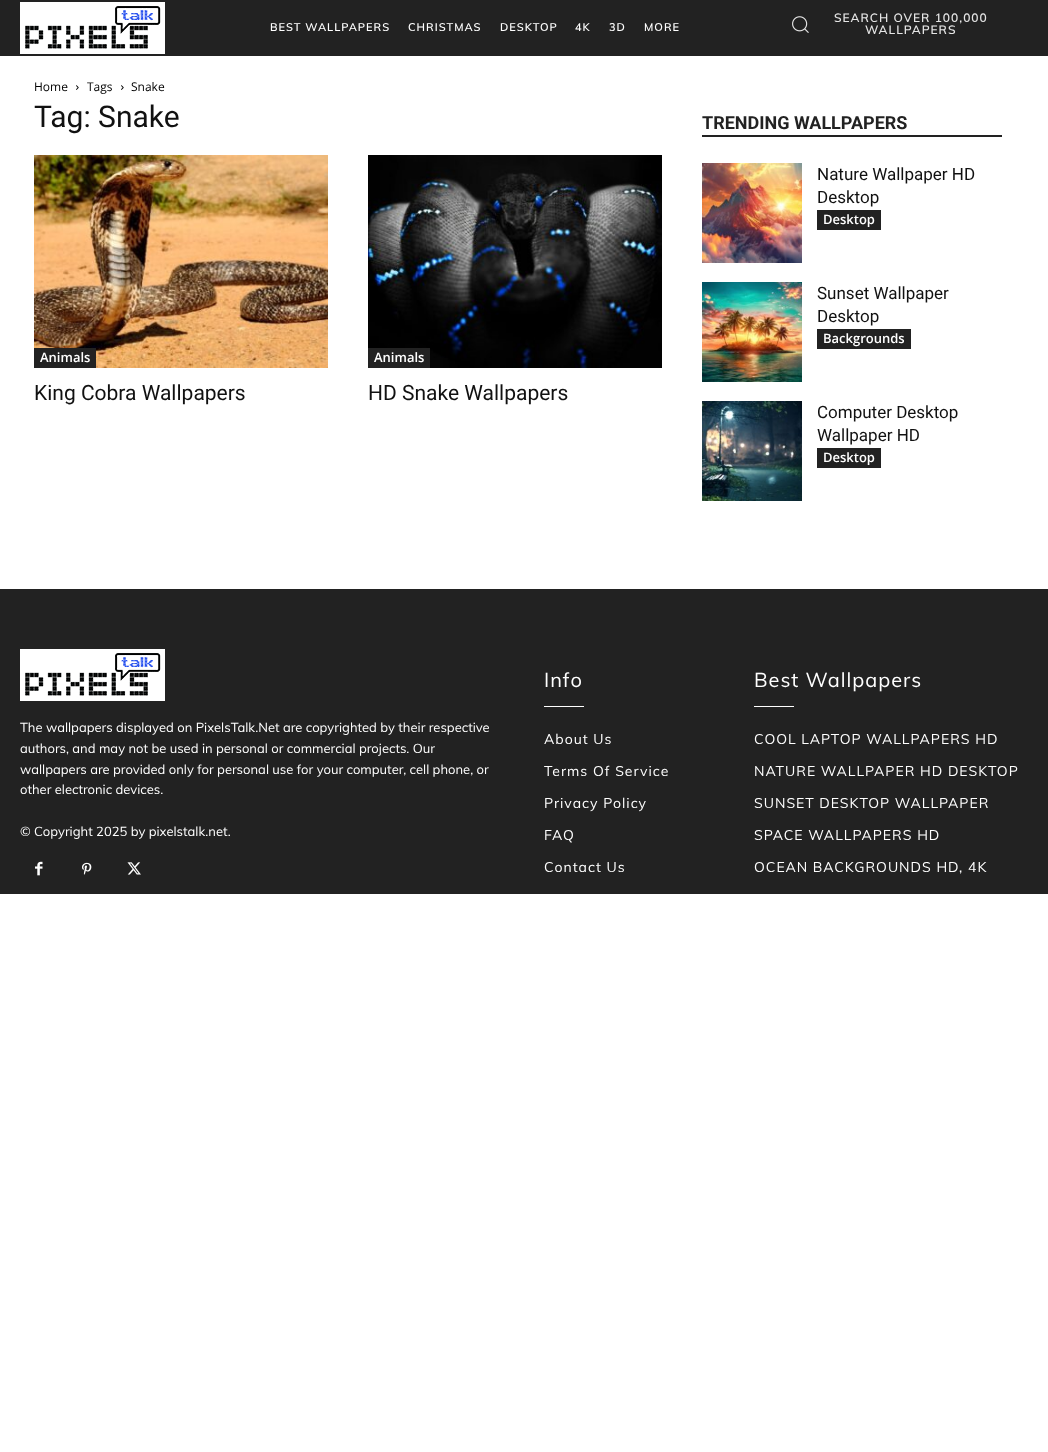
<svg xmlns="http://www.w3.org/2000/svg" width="1048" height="1452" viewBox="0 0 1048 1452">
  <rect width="100%" height="100%" fill="#fff"/>
  <path d="M0 0h1048v56H0z" fill="#222"/>
  <image x="20" y="2" width="145" height="52" href="img/1.png"/>
  <image x="792" y="16" width="17" height="17" href="img/2.png"/>
  <image x="76" y="85" width="3" height="5" href="img/3.png"/>
  <image x="121" y="85" width="3" height="5" href="img/3.png"/>
  <image x="34" y="155" width="294" height="213" href="img/4.png"/>
  <path d="M34 348h62v20H34z" fill="#222"/>
  <image x="368" y="155" width="294" height="213" href="img/5.png"/>
  <path d="M368 348h62v20H368z" fill="#222"/>
  <path d="M702 135h300v2H702z" fill="#222"/>
  <image x="702" y="163" width="100" height="100" href="img/6.png"/>
  <path d="M817 210h64v20H817z" fill="#222"/>
  <image x="702" y="282" width="100" height="100" href="img/7.png"/>
  <path d="M817 329h94v20H817z" fill="#222"/>
  <image x="702" y="401" width="100" height="100" href="img/8.png"/>
  <path d="M817 448h64v20H817z" fill="#222"/>
  <path d="M0 589h1048v305H0z" fill="#222"/>
  <image x="20" y="649" width="145" height="52" href="img/1.png"/>
  <image x="35" y="861" width="8" height="15" href="img/9.png"/>
  <image x="82" y="862" width="10" height="13" href="img/10.png"/>
  <image x="127" y="862" width="14" height="13" href="img/11.png"/>
  <path d="M544 706h40v1H544z" fill="#fff"/>
  <path d="M754 706h40v1H754z" fill="#fff"/>
  <g font-family="Muli" font-size="11" font-weight="600" letter-spacing="1" fill="#fff">
    <text x="270" y="31">BEST WALLPAPERS</text>
    <text x="408" y="31">CHRISTMAS</text>
    <text x="500" y="31">DESKTOP</text>
    <text x="575" y="31">4K</text>
    <text x="609" y="31">3D</text>
    <text x="644" y="31">MORE</text>
  </g>
  <g font-family="Muli" font-size="12" font-weight="600" letter-spacing="1" fill="#e5e5e5">
    <text x="834" y="22">SEARCH OVER 100,000</text>
    <text x="865" y="34">WALLPAPERS</text>
  </g>
  <g font-family="Open Sans" font-size="12" fill="#000">
    <text x="34" y="91">Home</text>
    <text x="87" y="91">Tags</text>
    <text x="131" y="91">Snake</text>
  </g>
  <text x="34" y="127" font-family="Roboto" font-size="30" fill="#111">Tag: Snake</text>
  <text x="40" y="362" font-family="Open Sans" font-size="13" font-weight="600" fill="#fff">Animals</text>
  <text x="34" y="400" font-family="Roboto" font-size="21" fill="#111">King Cobra Wallpapers</text>
  <text x="374" y="362" font-family="Open Sans" font-size="13" font-weight="600" fill="#fff">Animals</text>
  <text x="368" y="400" font-family="Roboto" font-size="21" fill="#111">HD Snake Wallpapers</text>
  <text x="702" y="129" font-family="Roboto" font-size="18" font-weight="bold" fill="#222">TRENDING WALLPAPERS</text>
  <g font-family="Roboto" font-size="17" fill="#111">
    <text x="817" y="180">Nature Wallpaper HD</text>
    <text x="817" y="203">Desktop</text>
  </g>
  <text x="823" y="224" font-family="Open Sans" font-size="13" font-weight="600" fill="#fff">Desktop</text>
  <g font-family="Roboto" font-size="17" fill="#111">
    <text x="817" y="299">Sunset Wallpaper</text>
    <text x="817" y="322">Desktop</text>
  </g>
  <text x="823" y="343" font-family="Open Sans" font-size="13" font-weight="600" fill="#fff">Backgrounds</text>
  <g font-family="Roboto" font-size="17" fill="#111">
    <text x="817" y="418">Computer Desktop</text>
    <text x="817" y="441">Wallpaper HD</text>
  </g>
  <text x="823" y="462" font-family="Open Sans" font-size="13" font-weight="600" fill="#fff">Desktop</text>
  <g font-family="Muli" font-size="13" fill="#fff">
    <text x="20" y="732">The wallpapers displayed on PixelsTalk.Net are copyrighted by their respective</text>
    <text x="20" y="753">authors, and may not be used in personal or commercial projects. Our</text>
    <text x="20" y="774">wallpapers are provided only for personal use for your computer, cell phone, or</text>
    <text x="20" y="794">other electronic devices.</text>
    <text x="20" y="836">© Copyright 2025 by pixelstalk.net.</text>
  </g>
  <text x="544" y="687" font-family="Muli" font-size="20" letter-spacing="1" fill="#fff">Info</text>
  <g font-family="Muli" font-size="14" letter-spacing="1" fill="#fff">
    <text x="544" y="744">About Us</text>
    <text x="544" y="776">Terms Of Service</text>
    <text x="544" y="808">Privacy Policy</text>
    <text x="544" y="840">FAQ</text>
    <text x="544" y="872">Contact Us</text>
  </g>
  <text x="754" y="687" font-family="Muli" font-size="20" letter-spacing="1" fill="#fff">Best Wallpapers</text>
  <g font-family="Muli" font-size="14" letter-spacing="1" fill="#fff">
    <text x="754" y="744">COOL LAPTOP WALLPAPERS HD</text>
    <text x="754" y="776">NATURE WALLPAPER HD DESKTOP</text>
    <text x="754" y="808">SUNSET DESKTOP WALLPAPER</text>
    <text x="754" y="840">SPACE WALLPAPERS HD</text>
    <text x="754" y="872">OCEAN BACKGROUNDS HD, 4K</text>
  </g>
</svg>
